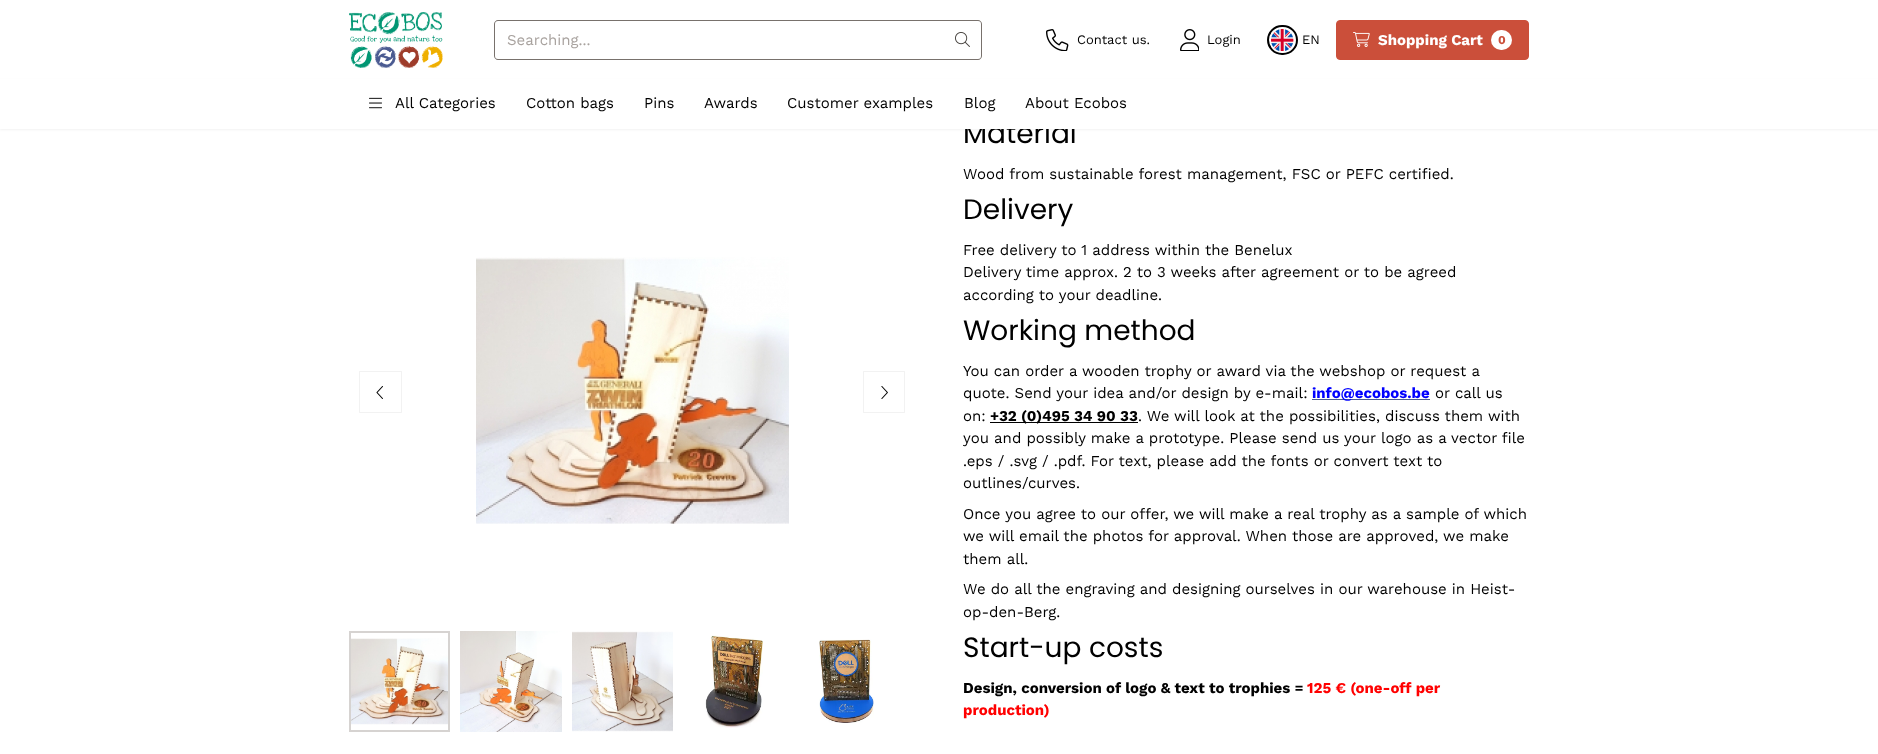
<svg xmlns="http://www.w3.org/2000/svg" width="1878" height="754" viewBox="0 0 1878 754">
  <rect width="100%" height="100%" fill="#fff"/>
  <image x="349" y="12" width="94" height="56" href="img/1.png"/>
  <path d="M498 20H944V60H498C496 60 494 58 494 56V24C494 22 496 20 498 20ZM498 21H944V59H498C496 59 495 58 495 56V24C495 22 496 21 498 21Z" fill="#78716c" fill-rule="evenodd"/>
  <path d="M943 20H978C980 20 982 22 982 24V56C982 58 980 60 978 60H943Z" fill="#fff"/>
  <path d="M943 20H978C980 20 982 22 982 24V56C982 58 980 60 978 60H943ZM943 21H978C980 21 981 22 981 24V56C981 58 980 59 978 59H943Z" fill="#78716c" fill-rule="evenodd"/>
  <image x="955" y="32" width="15" height="15" href="img/2.png"/>
  <image x="1046" y="29" width="23" height="22" href="img/3.png"/>
  <image x="1180" y="29" width="19" height="22" href="img/4.png"/>
  <rect x="1268" y="26" width="29" height="28" rx="14" fill="none" stroke="#000" stroke-width="2"/>
  <image x="1271" y="29" width="23" height="22" href="img/5.png"/>
  <rect x="1336.5" y="20.5" width="192" height="39" rx="3.5" fill="#cb4f3a" stroke="#cb4f3a"/>
  <image x="1353" y="32" width="17" height="15" href="img/6.png"/>
  <rect x="1491" y="30" width="21" height="20" rx="10" fill="#fff"/>
  <path d="M0 80h1878v50H0z" fill="#0000000d" filter="blur(1px)"/>
  <path d="M359.5 371.5h42v41H359.5z" fill="none" stroke="#0000000d"/>
  <image x="376" y="386" width="7" height="13" href="img/8.png"/>
  <image x="476" y="257" width="313" height="267" href="img/9.png"/>
  <path d="M863.5 371.5h41v41H863.5z" fill="none" stroke="#0000000d"/>
  <image x="881" y="386" width="7" height="13" href="img/10.png"/>
  <image x="351" y="638" width="97" height="87" href="img/11.png"/>
  <path d="M350 632h99v99H350z" fill="none" stroke="#d6d3d1" stroke-width="2"/>
  <image x="460" y="631" width="102" height="101" href="img/12.png"/>
  <image x="572" y="631" width="101" height="101" href="img/13.png"/>
  <image x="705" y="635" width="58" height="93" href="img/14.png"/>
  <image x="819" y="639" width="55" height="84" href="img/15.png"/>
  <path d="M1312 399h118v1H1312z" fill="#4a5a91"/>
  <path d="M990 422h148v1H990z" fill="#000"/>
  <text x="507" y="45" font-family="Work Sans" font-size="15" fill="#a8a29e">Searching...</text>
  <g font-family="Work Sans" font-size="13" fill="#000">
    <text x="1077" y="44">Contact us.</text>
    <text x="1207" y="44">Login</text>
    <text x="1302" y="44">EN</text>
  </g>
  <text x="1378" y="45" font-family="Work Sans" font-size="15" font-weight="bold" fill="#fff">Shopping Cart</text>
  <text x="1498" y="44" font-family="Work Sans" font-size="12" font-weight="bold" fill="#cb4f3a">0</text>
  <text x="963" y="143" font-family="Poppins" font-size="28" fill="#000">Material</text>
  <path d="M0 79h1878v50H0z" fill="#fff"/>
  <image x="369" y="97" width="13" height="12" href="img/7.png"/>
  <g font-family="Work Sans" font-size="15" fill="#000">
    <text x="1025" y="108">About Ecobos</text>
    <text x="964" y="108">Blog</text>
    <text x="787" y="108">Customer examples</text>
    <text x="704" y="108">Awards</text>
    <text x="644" y="108">Pins</text>
    <text x="526" y="108">Cotton bags</text>
    <text x="395" y="108">All Categories</text>
    <text x="963" y="179">Wood from sustainable forest management, FSC or PEFC certified.</text>
  </g>
  <text x="963" y="219" font-family="Poppins" font-size="28" fill="#000">Delivery</text>
  <g font-family="Work Sans" font-size="15" fill="#000">
    <text x="963" y="255">Free delivery to 1 address within the Benelux</text>
    <text x="963" y="277">Delivery time approx. 2 to 3 weeks after agreement or to be agreed</text>
    <text x="963" y="300">according to your deadline.</text>
  </g>
  <text x="963" y="340" font-family="Poppins" font-size="28" fill="#000">Working method</text>
  <g font-family="Work Sans" font-size="15" fill="#000">
    <text x="963" y="376">You can order a wooden trophy or award via the webshop or request a</text>
    <text x="963" y="398">quote. Send your idea and/or design by e-mail:</text>
  </g>
  <text x="1312" y="398" font-family="Work Sans" font-size="15" font-weight="bold" fill="#00f">info@ecobos.be</text>
  <g font-family="Work Sans" font-size="15" fill="#000">
    <text x="1435" y="398">or call us</text>
    <text x="963" y="421">on:</text>
  </g>
  <text x="990" y="421" font-family="Work Sans" font-size="15" font-weight="bold" fill="#000">+32 (0)495 34 90 33</text>
  <g font-family="Work Sans" font-size="15" fill="#000">
    <text x="1138" y="421">. We will look at the possibilities, discuss them with</text>
    <text x="963" y="443">you and possibly make a prototype. Please send us your logo as a vector file</text>
    <text x="963" y="466">.eps / .svg / .pdf. For text, please add the fonts or convert text to</text>
    <text x="963" y="488">outlines/curves.</text>
    <text x="963" y="519">Once you agree to our offer, we will make a real trophy as a sample of which</text>
    <text x="963" y="541">we will email the photos for approval. When those are approved, we make</text>
    <text x="963" y="564">them all.</text>
    <text x="963" y="594">We do all the engraving and designing ourselves in our warehouse in Heist-</text>
    <text x="963" y="617">op-den-Berg.</text>
  </g>
  <text x="963" y="657" font-family="Poppins" font-size="28" fill="#000">Start-up costs</text>
  <text x="963" y="693" font-family="Work Sans" font-size="15" font-weight="bold" fill="#000">Design, conversion of logo &amp; text to trophies =</text>
  <g font-family="Work Sans" font-size="15" font-weight="bold" fill="#f00">
    <text x="1307" y="693">125 € (one-off per</text>
    <text x="963" y="715">production)</text>
  </g>
</svg>
